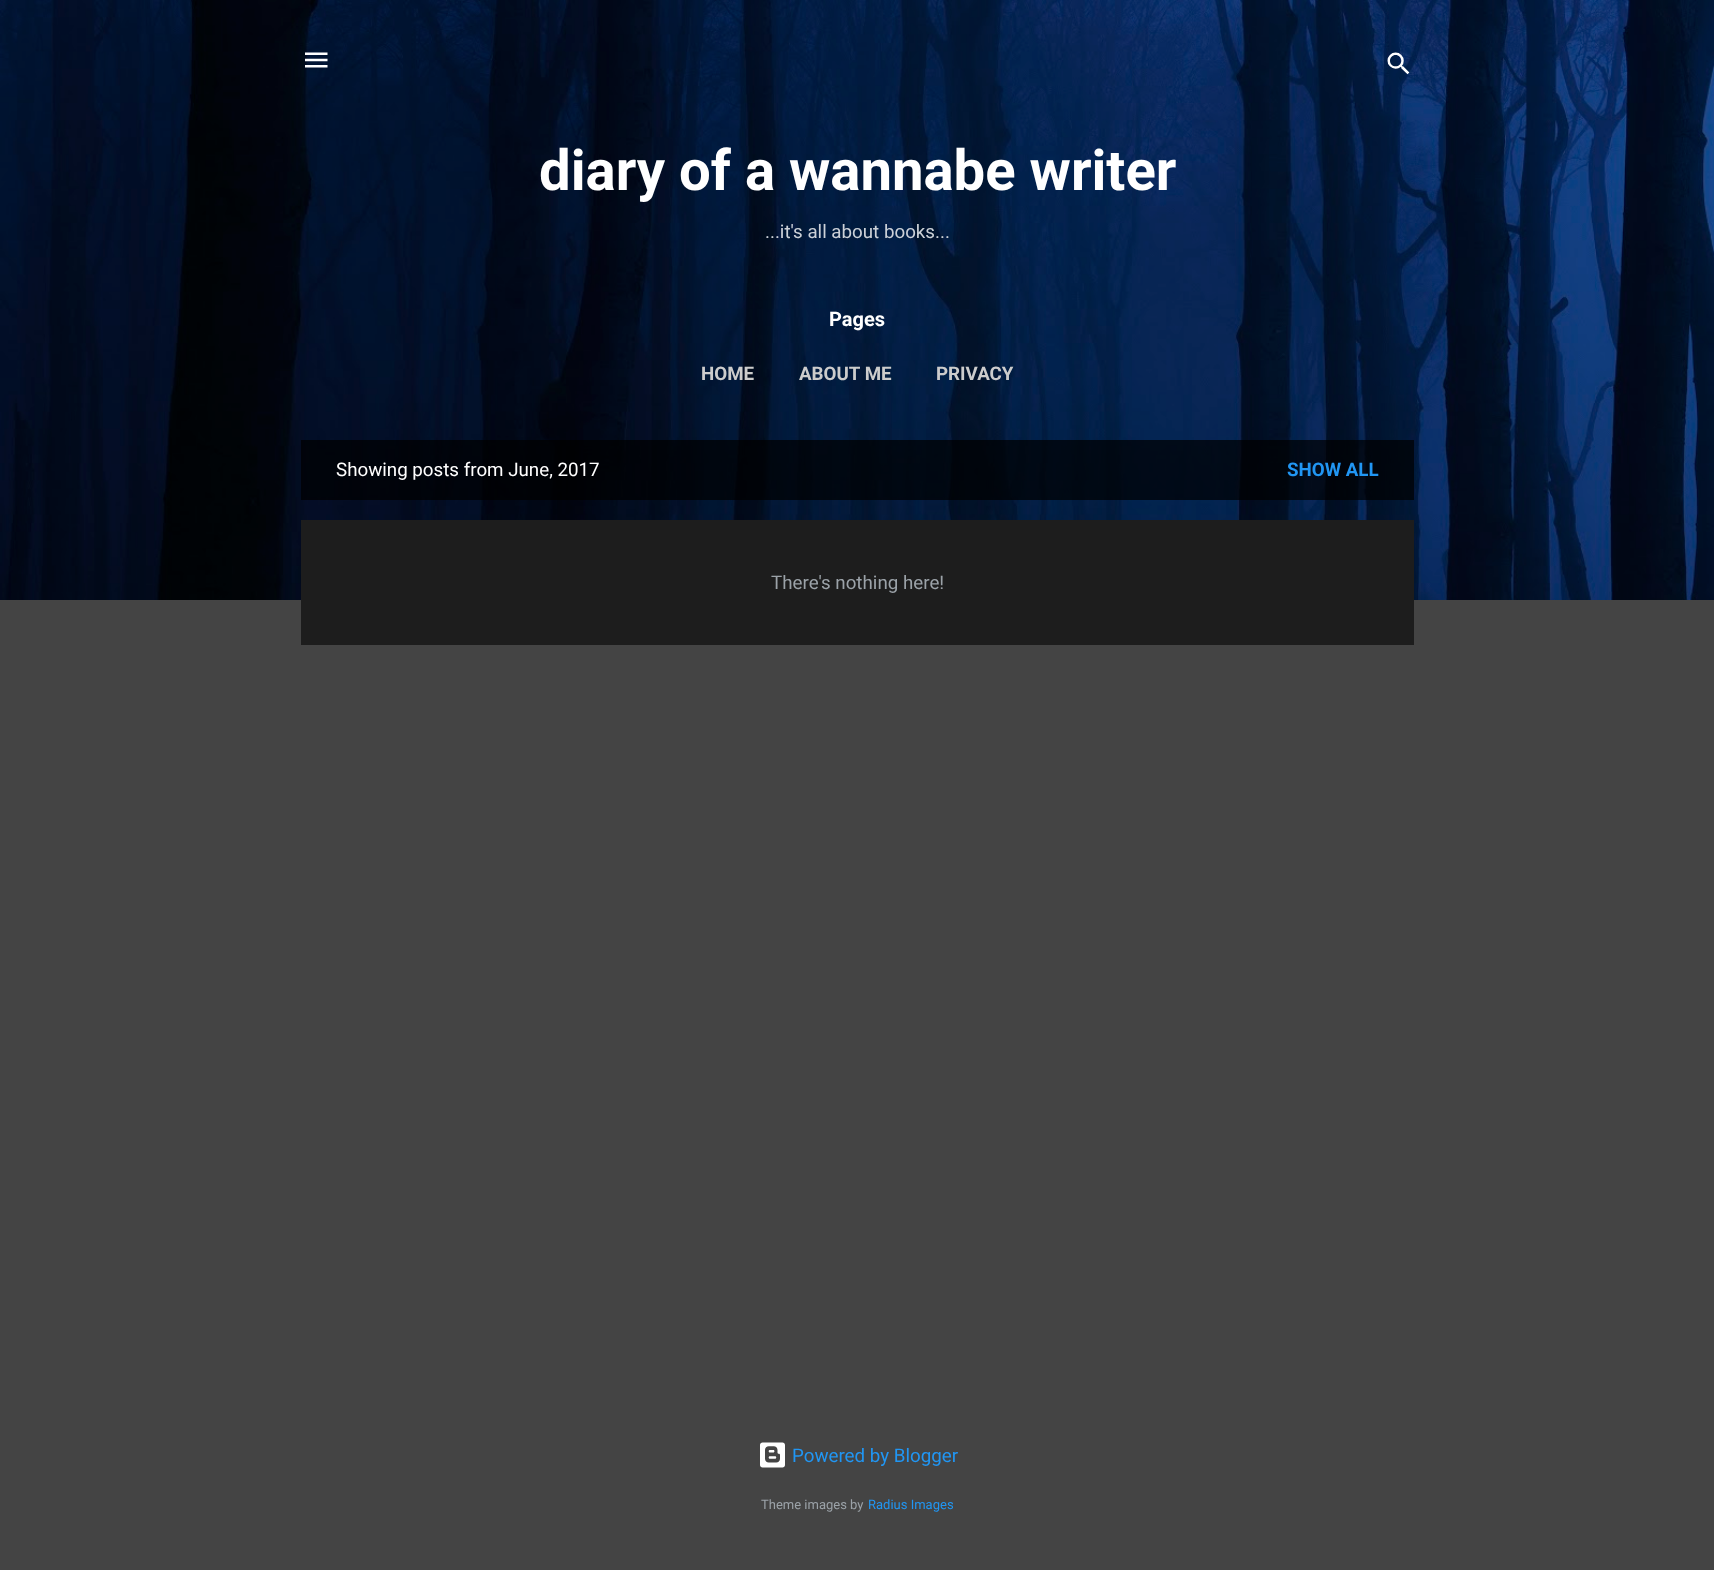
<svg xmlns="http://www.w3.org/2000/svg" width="1714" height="1570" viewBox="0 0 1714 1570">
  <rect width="100%" height="100%" fill="#444"/>
  <image x="0" y="0" width="1714" height="600" href="img/1.png"/>
  <image x="305" y="52" width="23" height="16" href="img/2.png"/>
  <image x="1387" y="52" width="23" height="23" href="img/3.png"/>
  <path d="M301 440h1113v60H301z" fill="#000000b3"/>
  <path d="M301 520h1113v125H301z" fill="#1d1d1d"/>
  <image x="760" y="1442" width="25" height="26" href="img/4.png"/>
  <text x="539" y="190" font-family="Roboto" font-size="56.25" font-weight="bold" fill="#fff">diary of a wannabe writer</text>
  <text x="765" y="238" font-family="Roboto" font-size="18.75" fill="#ccd1d8">...it's all about books...</text>
  <text x="829" y="326" font-family="Roboto" font-size="20" font-weight="bold" fill="#fff">Pages</text>
  <g font-family="Roboto" font-size="18.75" font-weight="bold" fill="#ccc">
    <text x="701" y="380">HOME</text>
    <text x="799" y="380">ABOUT ME</text>
    <text x="936" y="380">PRIVACY</text>
  </g>
  <text x="336" y="476" font-family="Roboto" font-size="18.75" fill="#fff">Showing posts from June, 2017</text>
  <text x="1287" y="476" font-family="Roboto" font-size="18.75" font-weight="bold" fill="#2196f3">SHOW ALL</text>
  <text x="771" y="589" font-family="Roboto" font-size="18.75" fill="#9ba2a8">There's nothing here!</text>
  <text x="792" y="1462" font-family="Roboto" font-size="18.75" fill="#2196f3">Powered by Blogger</text>
  <text x="761" y="1509" font-family="Roboto" font-size="13" fill="#9ba2a8">Theme images by</text>
  <text x="868" y="1509" font-family="Roboto" font-size="13" fill="#2196f3">Radius Images</text>
</svg>
